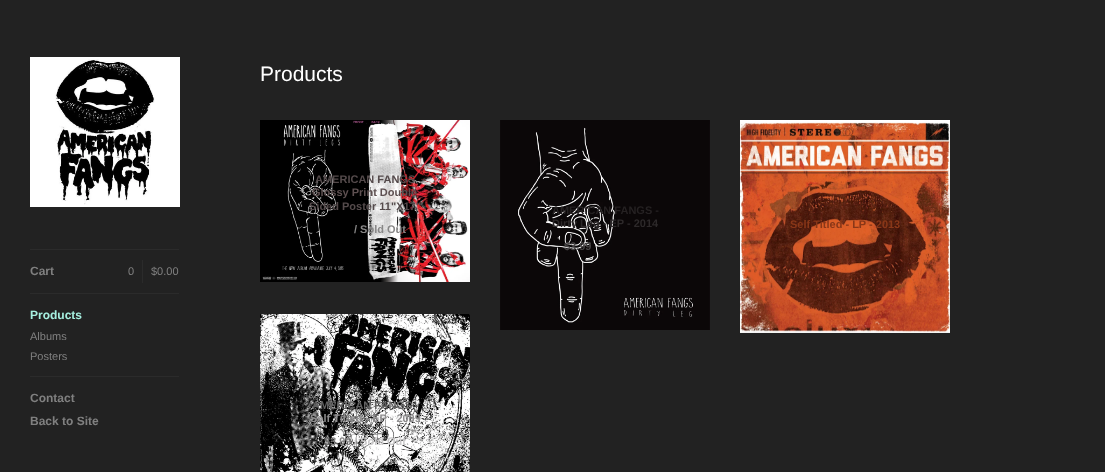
<svg xmlns="http://www.w3.org/2000/svg" width="1105" height="472" viewBox="0 0 1105 472">
  <rect width="100%" height="100%" fill="#222"/>
  <image x="30" y="57" width="150" height="150" href="img/1.png"/>
  <path d="M30 249h149v1H30z" fill="#2b2b2b"/>
  <path d="M142 260h1v23H142z" fill="#2b2b2b"/>
  <path d="M30 293h149v1H30z" fill="#2b2b2b"/>
  <path d="M30 376h149v1H30z" fill="#2b2b2b"/>
  <image x="260" y="120" width="210" height="162" href="img/2.png"/>
  <image x="500" y="120" width="210" height="210" href="img/3.png"/>
  <image x="740" y="120" width="210" height="213" href="img/4.png"/>
  <image x="260" y="314" width="210" height="158" href="img/5.png"/>
  <text x="30" y="275" font-family="Liberation Sans" font-size="12" font-weight="bold" fill="#808080">Cart</text>
  <g font-family="Liberation Sans" font-size="11" fill="#808080">
    <text x="128" y="275">0</text>
    <text x="151" y="275">$0.00</text>
  </g>
  <text x="30" y="319" font-family="Liberation Sans" font-size="12" font-weight="bold" fill="#a6f0e0">Products</text>
  <g font-family="Liberation Sans" font-size="11" fill="#808080">
    <text x="30" y="340">Albums</text>
    <text x="30" y="360">Posters</text>
  </g>
  <g font-family="Liberation Sans" font-size="12" font-weight="bold" fill="#808080">
    <text x="30" y="402">Contact</text>
    <text x="30" y="425">Back to Site</text>
  </g>
  <text x="260" y="81" font-family="Liberation Sans" font-size="21" fill="#fff">Products</text>
  <text x="315" y="183" font-family="Liberation Sans" font-size="11" font-weight="bold" fill="#544a4b">AMERICAN FANGS</text>
  <text x="312" y="196" font-family="Liberation Sans" font-size="11" font-weight="bold" fill="#5e5051">Glossy Print Double</text>
  <text x="309" y="210" font-family="Liberation Sans" font-size="11" font-weight="bold" fill="#544a4b">Sided Poster 11"X17"</text>
  <text x="354" y="233" font-family="Liberation Sans" font-size="11" font-weight="bold" fill="#888787">/ Sold Out</text>
  <text x="552" y="214" font-family="Liberation Sans" font-size="11" font-weight="bold" fill="#252122">AMERICAN FANGS -</text>
  <text x="552" y="227" font-family="Liberation Sans" font-size="11" font-weight="bold" fill="#2d292a">Dirty Leg - EP - 2014</text>
  <g font-family="Liberation Sans" font-size="11" font-weight="bold" fill="#494647">
    <text x="564" y="250">$</text>
    <text x="570" y="250">3.99</text>
  </g>
  <text x="790" y="228" font-family="Liberation Sans" font-size="11" font-weight="bold" fill="#893718">Self Titled - LP - 2013</text>
  <text x="312" y="409" font-family="Liberation Sans" font-size="11" font-weight="bold" fill="#626262">AMERICAN FANGS -</text>
  <text x="310" y="422" font-family="Liberation Sans" font-size="11" font-weight="bold" fill="#8f8e8f">Self Titled - EP - 2009</text>
  <text x="324" y="445" font-family="Liberation Sans" font-size="11" font-weight="bold" fill="#6a6a6a">$</text>
  <text x="330" y="445" font-family="Liberation Sans" font-size="11" font-weight="bold" fill="#888787">3.99</text>
  <text x="354" y="445" font-family="Liberation Sans" font-size="11" font-weight="bold" fill="#cac9ca">/ Sold Out</text>
</svg>
